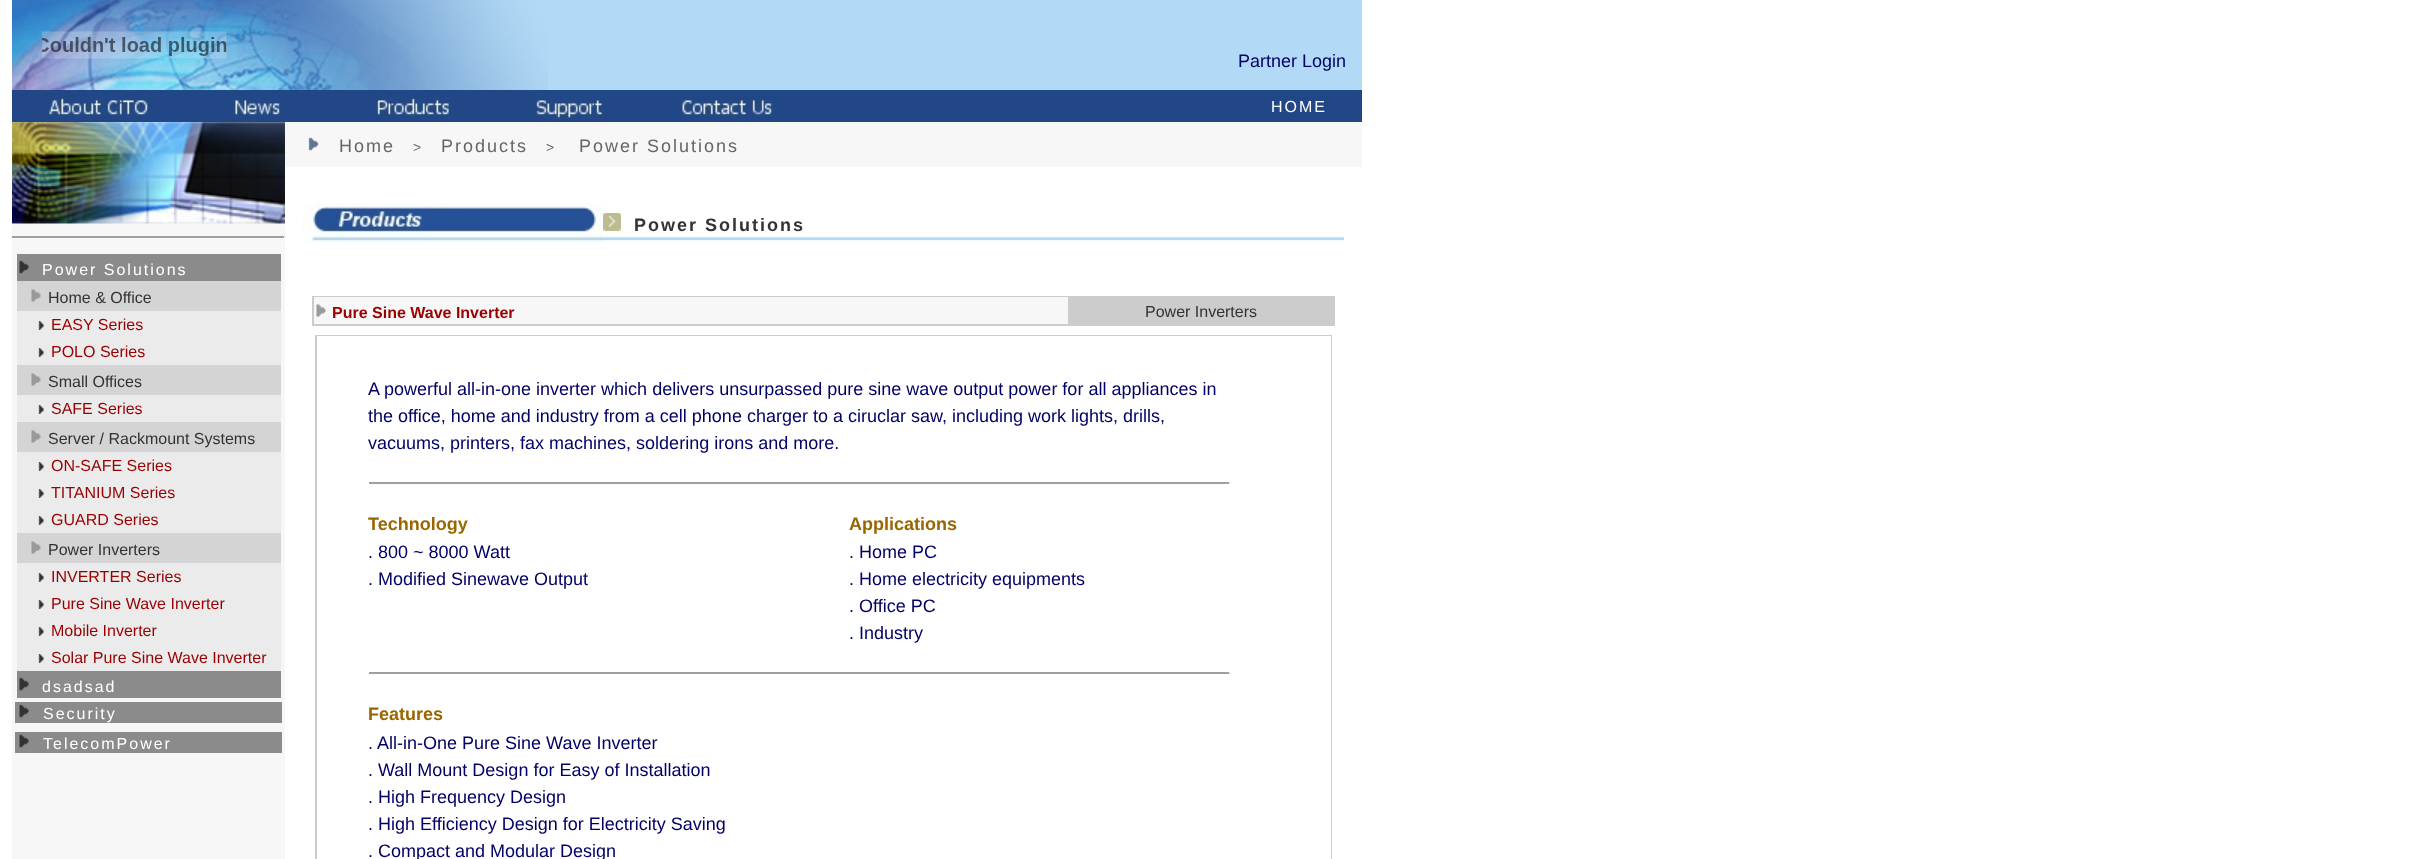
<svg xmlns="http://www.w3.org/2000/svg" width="2422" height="859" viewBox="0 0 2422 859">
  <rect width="100%" height="100%" fill="#fff"/>
  <image x="12" y="0" width="536" height="90" href="img/1.png"/>
  <image x="42" y="31" width="185" height="28" href="img/2.png"/>
  <path d="M548 0h814v90H548z" fill="#b2d9f6"/>
  <path d="M12 90h1350v32H12z" fill="#214787"/>
  <image x="48" y="97" width="101" height="20" href="img/3.png"/>
  <image x="234" y="99" width="48" height="18" href="img/4.png"/>
  <image x="376" y="97" width="75" height="20" href="img/5.png"/>
  <image x="535" y="92" width="69" height="27" href="img/6.png"/>
  <image x="681" y="99" width="93" height="18" href="img/7.png"/>
  <path d="M285 122h1077v45H285z" fill="#f7f7f7"/>
  <image x="308" y="137" width="11" height="14" href="img/8.png"/>
  <path d="M12 223h273v636H12z" fill="#f7f7f7"/>
  <image x="12" y="122" width="273" height="102" href="img/9.png"/>
  <path d="M12 236h273v2H12z" fill="#9f9f9f"/>
  <path d="M284 236h2v2H284z" fill="#eee"/>
  <path d="M17 254h264v27H17z" fill="#8b8b8b"/>
  <image x="19" y="260" width="10" height="14" href="img/10.png"/>
  <path d="M17 281h264v30H17z" fill="#d4d4d4"/>
  <image x="31" y="289" width="10" height="13" href="img/11.png"/>
  <path d="M17 311h264v54H17z" fill="#ebebeb"/>
  <image x="38" y="321" width="6" height="9" href="img/12.png"/>
  <image x="38" y="348" width="6" height="9" href="img/12.png"/>
  <path d="M17 365h264v30H17z" fill="#d4d4d4"/>
  <image x="31" y="373" width="10" height="13" href="img/11.png"/>
  <path d="M17 395h264v27H17z" fill="#ebebeb"/>
  <image x="38" y="405" width="6" height="9" href="img/12.png"/>
  <path d="M17 422h264v30H17z" fill="#d4d4d4"/>
  <image x="31" y="430" width="10" height="13" href="img/11.png"/>
  <path d="M17 452h264v81H17z" fill="#ebebeb"/>
  <image x="38" y="462" width="6" height="9" href="img/12.png"/>
  <image x="38" y="489" width="6" height="9" href="img/12.png"/>
  <image x="38" y="516" width="6" height="9" href="img/12.png"/>
  <path d="M17 533h264v30H17z" fill="#d4d4d4"/>
  <image x="31" y="541" width="10" height="13" href="img/11.png"/>
  <path d="M17 563h264v108H17z" fill="#ebebeb"/>
  <image x="38" y="573" width="6" height="9" href="img/12.png"/>
  <image x="38" y="600" width="6" height="9" href="img/12.png"/>
  <image x="38" y="627" width="6" height="9" href="img/12.png"/>
  <image x="38" y="654" width="6" height="9" href="img/12.png"/>
  <path d="M17 671h264v27H17z" fill="#8b8b8b"/>
  <image x="19" y="677" width="10" height="14" href="img/10.png"/>
  <path d="M15 702h267v21H15z" fill="#8b8b8b"/>
  <image x="19" y="704" width="10" height="14" href="img/10.png"/>
  <path d="M15 732h267v21H15z" fill="#8b8b8b"/>
  <image x="19" y="734" width="10" height="14" href="img/10.png"/>
  <image x="303" y="203" width="300" height="40" href="img/13.png"/>
  <image x="603" y="236" width="741" height="5" href="img/14.png"/>
  <image x="603" y="213" width="18" height="18" href="img/15.png"/>
  <path d="M312 296h1023v30H312z" fill="#ccc"/>
  <path d="M314 297h754v27H314z" fill="#f7f7f7"/>
  <image x="316" y="304" width="10" height="13" href="img/16.png"/>
  <path d="M315 335h1017v524H315z" fill="#ccc"/>
  <path d="M317 336h1014v523H317z" fill="#fff"/>
  <path d="M369 482h861v2H369z" fill="#9f9f9f"/>
  <path d="M1229 482h2v2H1229z" fill="#eee"/>
  <path d="M369 672h861v2H369z" fill="#9f9f9f"/>
  <path d="M1229 672h2v2H1229z" fill="#eee"/>
  <text x="1238" y="67" font-family="Liberation Sans" font-size="18" fill="#006">Partner Login</text>
  <text x="1271" y="112" font-family="Liberation Sans" font-size="16" letter-spacing="2" fill="#fff">HOME</text>
  <text x="339" y="152" font-family="Liberation Sans" font-size="18" letter-spacing="2" fill="#666">Home</text>
  <text x="413" y="152" font-family="Liberation Sans" font-size="14" letter-spacing="2" fill="#666">&gt;</text>
  <text x="441" y="152" font-family="Liberation Sans" font-size="18" letter-spacing="2" fill="#666">Products</text>
  <text x="546" y="152" font-family="Liberation Sans" font-size="14" letter-spacing="2" fill="#666">&gt;</text>
  <text x="579" y="152" font-family="Liberation Sans" font-size="18" letter-spacing="2" fill="#666">Power Solutions</text>
  <text x="42" y="275" font-family="Liberation Sans" font-size="16" letter-spacing="2" fill="#fff">Power Solutions</text>
  <text x="48" y="303" font-family="Liberation Sans" font-size="16" fill="#333">Home &amp; Office</text>
  <g font-family="Liberation Sans" font-size="16" fill="#900">
    <text x="51" y="330">EASY Series</text>
    <text x="51" y="357">POLO Series</text>
  </g>
  <text x="48" y="387" font-family="Liberation Sans" font-size="16" fill="#333">Small Offices</text>
  <text x="51" y="414" font-family="Liberation Sans" font-size="16" fill="#900">SAFE Series</text>
  <text x="48" y="444" font-family="Liberation Sans" font-size="16" fill="#333">Server / Rackmount Systems</text>
  <g font-family="Liberation Sans" font-size="16" fill="#900">
    <text x="51" y="471">ON-SAFE Series</text>
    <text x="51" y="498">TITANIUM Series</text>
    <text x="51" y="525">GUARD Series</text>
  </g>
  <text x="48" y="555" font-family="Liberation Sans" font-size="16" fill="#333">Power Inverters</text>
  <g font-family="Liberation Sans" font-size="16" fill="#900">
    <text x="51" y="582">INVERTER Series</text>
    <text x="51" y="609">Pure Sine Wave Inverter</text>
    <text x="51" y="636">Mobile Inverter</text>
    <text x="51" y="663">Solar Pure Sine Wave Inverter</text>
  </g>
  <g font-family="Liberation Sans" font-size="16" letter-spacing="2" fill="#fff">
    <text x="42" y="692">dsadsad</text>
    <text x="43" y="719">Security</text>
    <text x="43" y="749">TelecomPower</text>
  </g>
  <text x="634" y="231" font-family="Liberation Sans" font-size="18" font-weight="bold" letter-spacing="2" fill="#333">Power Solutions</text>
  <text x="332" y="318" font-family="Liberation Sans" font-size="16" font-weight="bold" fill="#900">Pure Sine Wave Inverter</text>
  <text x="1145" y="317" font-family="Liberation Sans" font-size="16" fill="#333">Power Inverters</text>
  <g font-family="Liberation Sans" font-size="18" fill="#006">
    <text x="368" y="395">A powerful all-in-one inverter which delivers unsurpassed pure sine wave output power for all appliances in</text>
    <text x="368" y="422">the office, home and industry from a cell phone charger to a ciruclar saw, including work lights, drills,</text>
    <text x="368" y="449">vacuums, printers, fax machines, soldering irons and more.</text>
  </g>
  <text x="368" y="530" font-family="Liberation Sans" font-size="18" font-weight="bold" fill="#960">Technology</text>
  <g font-family="Liberation Sans" font-size="18" fill="#006">
    <text x="368" y="558">. 800 ~ 8000 Watt</text>
    <text x="368" y="585">. Modified Sinewave Output</text>
  </g>
  <text x="849" y="530" font-family="Liberation Sans" font-size="18" font-weight="bold" fill="#960">Applications</text>
  <g font-family="Liberation Sans" font-size="18" fill="#006">
    <text x="849" y="558">. Home PC</text>
    <text x="849" y="585">. Home electricity equipments</text>
    <text x="849" y="612">. Office PC</text>
    <text x="849" y="639">. Industry</text>
  </g>
  <text x="368" y="720" font-family="Liberation Sans" font-size="18" font-weight="bold" fill="#960">Features</text>
  <g font-family="Liberation Sans" font-size="18" fill="#006">
    <text x="368" y="749">. All-in-One Pure Sine Wave Inverter</text>
    <text x="368" y="776">. Wall Mount Design for Easy of Installation</text>
    <text x="368" y="803">. High Frequency Design</text>
    <text x="368" y="830">. High Efficiency Design for Electricity Saving</text>
    <text x="368" y="857">. Compact and Modular Design</text>
  </g>
</svg>
